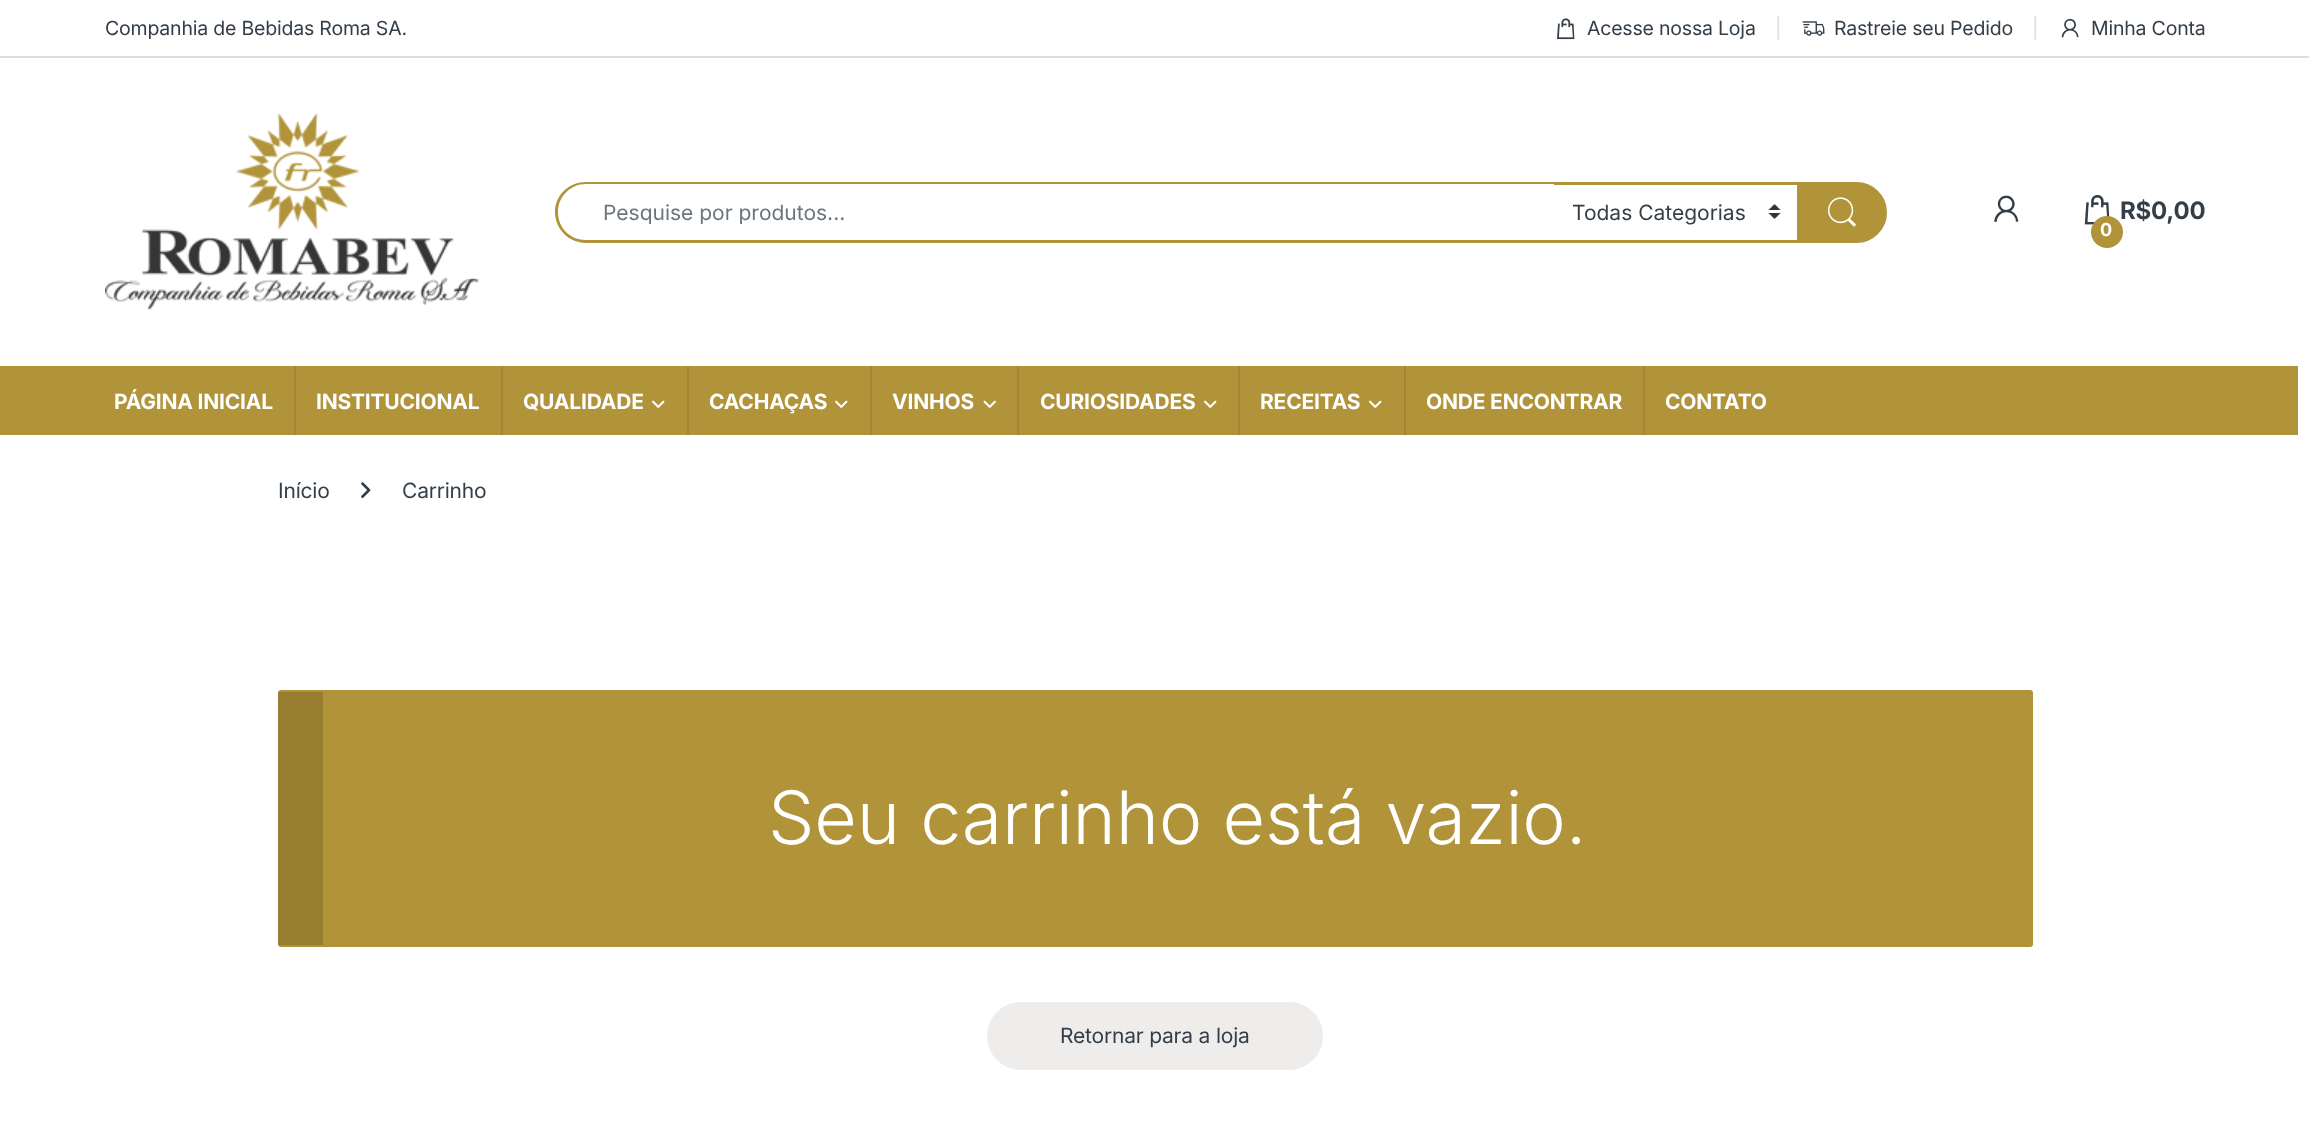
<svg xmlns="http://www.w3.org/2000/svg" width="2309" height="1122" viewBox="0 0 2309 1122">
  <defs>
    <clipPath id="clip1"><path d="M603 198h908v26H603z"/></clipPath>
  </defs>
  <rect width="100%" height="100%" fill="#fff"/>
  <path d="M0 56h2309v2H0z" fill="#ddd"/>
  <image x="1557" y="18" width="18" height="22" href="img/1.png"/>
  <image x="1802" y="21" width="23" height="15" href="img/2.png"/>
  <image x="2061" y="18" width="18" height="20" href="img/3.png"/>
  <image x="105" y="112" width="374" height="198" href="img/4.png"/>
  <path d="M586 182H1556V243H586C569 243 555 229 555 212C555 195 569 182 586 182ZM586 184H1556V240H586C570 240 558 228 558 212C558 197 570 184 586 184Z" fill="#b19339" fill-rule="evenodd"/>
  <path d="M1554 182h245v3H1554z" fill="#b19339"/>
  <path d="M1554 240h245v3H1554z" fill="#b19339"/>
  <image x="1768" y="204" width="13" height="15" href="img/5.png"/>
  <path d="M1798.5 183.5H1856.5C1872.5 183.5 1885.5 196.5 1885.5 212.5C1885.5 228.5 1872.5 241.5 1856.5 241.5H1798.5Z" fill="#b19339" stroke="#b19339" stroke-width="3"/>
  <image x="1827" y="197" width="29" height="30" href="img/6.png"/>
  <image x="1994" y="195" width="25" height="27" href="img/7.png"/>
  <image x="2084" y="195" width="26" height="30" href="img/8.png"/>
  <path d="M0 366h2298v69H0z" fill="#b19339"/>
  <path d="M294 366h2v69H294z" fill="#a38734"/>
  <path d="M501 366h2v69H501z" fill="#a38734"/>
  <image x="652" y="400" width="13" height="8" href="img/9.png"/>
  <path d="M687 366h2v69H687z" fill="#a38734"/>
  <image x="835" y="400" width="13" height="8" href="img/9.png"/>
  <path d="M870 366h2v69H870z" fill="#a38734"/>
  <image x="983" y="400" width="13" height="8" href="img/10.png"/>
  <path d="M1017 366h2v69H1017z" fill="#a38734"/>
  <image x="1204" y="400" width="13" height="8" href="img/9.png"/>
  <path d="M1238 366h2v69H1238z" fill="#a38734"/>
  <image x="1369" y="400" width="13" height="8" href="img/9.png"/>
  <path d="M1404 366h2v69H1404z" fill="#a38734"/>
  <path d="M1643 366h2v69H1643z" fill="#a38734"/>
  <image x="361" y="482" width="10" height="16" href="img/11.png"/>
  <rect x="278" y="690" width="1755" height="257" rx="3" fill="#b19339"/>
  <path d="M278 692h45v253H278z" fill="#00000026"/>
  <rect x="988" y="1003" width="334" height="66" rx="33" fill="#efecec" stroke="#efecec" stroke-width="2"/>
  <g font-family="Inter" font-size="19.5" letter-spacing="-0.2" fill="#333e48">
    <text x="105" y="35">Companhia de Bebidas Roma SA.</text>
    <text x="1587" y="35">Acesse nossa Loja</text>
  </g>
  <text x="1775" y="35" font-family="Inter" font-size="19.5" letter-spacing="-0.2" fill="#ddd">|</text>
  <text x="1834" y="35" font-family="Inter" font-size="19.5" letter-spacing="-0.2" fill="#333e48">Rastreie seu Pedido</text>
  <text x="2032" y="35" font-family="Inter" font-size="19.5" letter-spacing="-0.2" fill="#ddd">|</text>
  <text x="2091" y="35" font-family="Inter" font-size="19.5" letter-spacing="-0.2" fill="#333e48">Minha Conta</text>
  <g clip-path="url(#clip1)">
    <text x="603" y="220" font-family="Inter" font-size="21" fill="#6c757d">Pesquise por produtos...</text>
  </g>
  <text x="1572" y="220" font-family="Inter" font-size="21" fill="#333e48">Todas Categorias</text>
  <text x="2120" y="219" font-family="Inter" font-size="24" font-weight="bold" letter-spacing="-0.2" fill="#333e48">R$0,00</text>
  <circle cx="2107" cy="232" r="16" fill="#b19339"/>
  <text x="2100" y="236" font-family="Inter" font-size="18" font-weight="bold" letter-spacing="-0.2" fill="#fff">0</text>
  <g font-family="Inter" font-size="21" font-weight="bold" letter-spacing="-0.2" fill="#fff">
    <text x="114" y="409">PÁGINA INICIAL</text>
    <text x="316" y="409">INSTITUCIONAL</text>
    <text x="523" y="409">QUALIDADE</text>
    <text x="709" y="409">CACHAÇAS</text>
    <text x="892" y="409">VINHOS</text>
    <text x="1040" y="409">CURIOSIDADES</text>
    <text x="1260" y="409">RECEITAS</text>
    <text x="1426" y="409">ONDE ENCONTRAR</text>
    <text x="1665" y="409">CONTATO</text>
  </g>
  <g font-family="Inter" font-size="21" letter-spacing="-0.2" fill="#333e48">
    <text x="278" y="498">Início</text>
    <text x="402" y="498">Carrinho</text>
  </g>
  <text x="768" y="844" font-family="Inter" font-size="73.5" font-weight="300" letter-spacing="-0.2" fill="#fff">Seu carrinho está vazio.</text>
  <text x="1060" y="1043" font-family="Inter" font-size="21" letter-spacing="-0.2" fill="#333e48">Retornar para a loja</text>
</svg>
